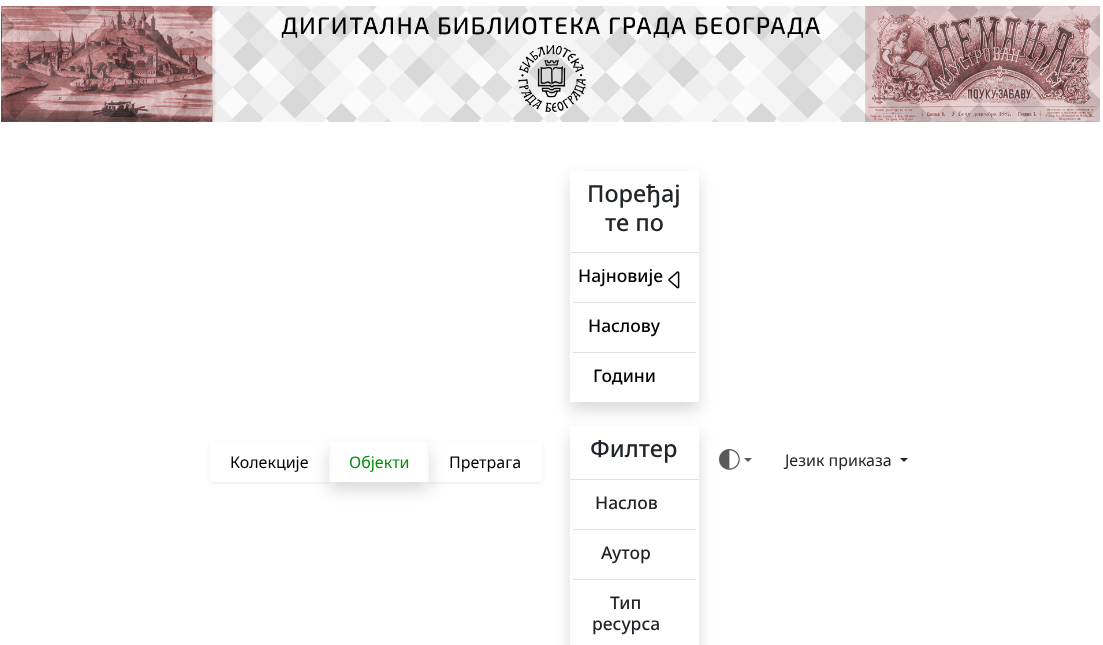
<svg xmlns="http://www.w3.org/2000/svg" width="1103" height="645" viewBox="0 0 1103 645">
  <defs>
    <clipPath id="clip1"><path d="M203 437H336V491H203ZM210 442H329V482H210Z" clip-rule="evenodd"/></clipPath>
    <clipPath id="clip2"><path d="M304 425H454V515H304ZM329 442H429V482H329Z" clip-rule="evenodd"/></clipPath>
    <clipPath id="clip3"><path d="M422 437H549V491H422ZM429 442H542V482H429Z" clip-rule="evenodd"/></clipPath>
    <clipPath id="clip4"><path d="M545 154H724V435H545ZM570 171H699V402H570Z" clip-rule="evenodd"/></clipPath>
    <clipPath id="clip5"><path d="M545 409H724V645H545ZM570 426H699V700H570Z" clip-rule="evenodd"/></clipPath>
  </defs>
  <rect width="100%" height="100%" fill="#fff"/>
  <image x="1" y="6" width="1099" height="116" href="img/1.png"/>
  <g clip-path="url(#clip1)">
    <path d="M210 444h119v40H210z" fill="#00000012" filter="blur(2px)"/>
  </g>
  <g clip-path="url(#clip2)">
    <path d="M329 450h100v40H329z" fill="#00000026" filter="blur(8px)"/>
  </g>
  <g clip-path="url(#clip3)">
    <path d="M429 444h113v40H429z" fill="#00000012" filter="blur(2px)"/>
  </g>
  <g clip-path="url(#clip4)">
    <path d="M570 179h129v231H570z" fill="#00000026" filter="blur(8px)"/>
  </g>
  <path d="M570 252h129v1H570z" fill="#dee2e6"/>
  <path d="M573 302h123v1H573z" fill="#dee2e6"/>
  <image x="668" y="271" width="12" height="18" href="img/2.png"/>
  <path d="M573 352h123v1H573z" fill="#dee2e6"/>
  <g clip-path="url(#clip5)">
    <path d="M570 434h129v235H570z" fill="#00000026" filter="blur(8px)"/>
  </g>
  <path d="M570 479h129v1H570z" fill="#dee2e6"/>
  <path d="M573 529h123v1H573z" fill="#dee2e6"/>
  <path d="M573 579h123v1H573z" fill="#dee2e6"/>
  <image x="719" y="449" width="21" height="21" href="img/3.png"/>
  <path d="M744 458H752L748 462Z" fill="#595959"/>
  <path d="M900 458H908L904 462Z" fill="#212529"/>
  <text x="230" y="468" font-family="Noto Sans" font-size="16" fill="#000">Колекције</text>
  <text x="349" y="468" font-family="Noto Sans" font-size="16" fill="#068a0e">Објекти</text>
  <text x="449" y="468" font-family="Noto Sans" font-size="16" fill="#000">Претрага</text>
  <g font-family="Noto Sans" font-size="23.5" font-weight="500" fill="#212529">
    <text x="587" y="202">Поређај</text>
    <text x="605" y="231">те по</text>
  </g>
  <g font-family="Noto Sans" font-size="17.5" font-weight="500" fill="#000">
    <text x="578" y="282">Најновије</text>
    <text x="588" y="332">Наслову</text>
    <text x="593" y="382">Години</text>
  </g>
  <text x="590" y="457" font-family="Noto Sans" font-size="23.5" font-weight="500" fill="#212529">Филтер</text>
  <g font-family="Noto Sans" font-size="17.5" font-weight="500" fill="#212529">
    <text x="595" y="509">Наслов</text>
    <text x="601" y="559">Аутор</text>
    <text x="610" y="609">Тип</text>
    <text x="592" y="630">ресурса</text>
  </g>
  <text x="785" y="466" font-family="Noto Sans" font-size="16" fill="#212529">Језик приказа</text>
</svg>
